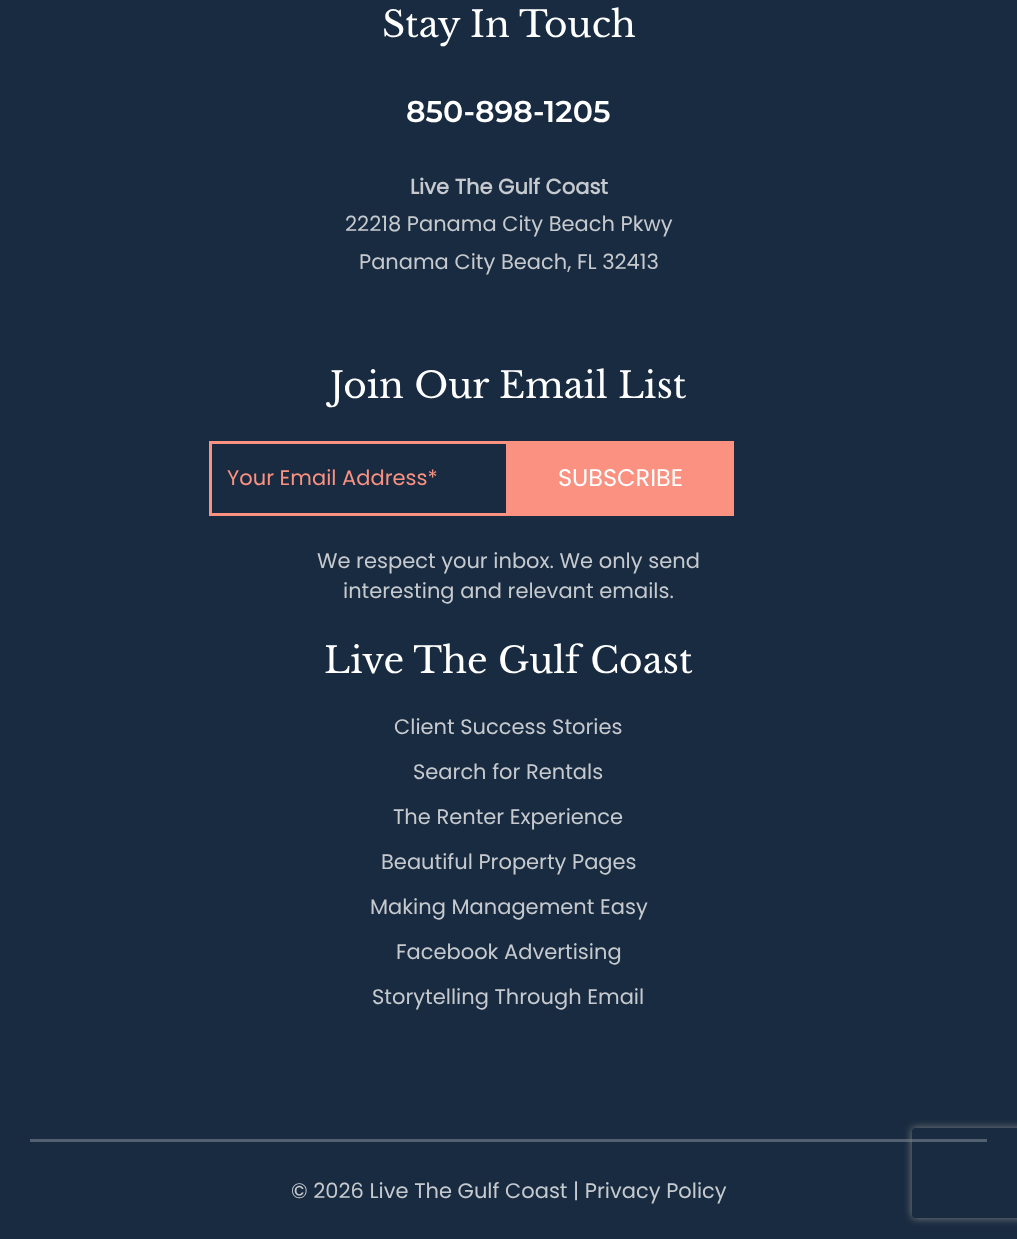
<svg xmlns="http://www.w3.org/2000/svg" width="1017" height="1239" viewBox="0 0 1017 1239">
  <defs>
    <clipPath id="clip1"><path d="M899 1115H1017V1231H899ZM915 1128H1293C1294.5 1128 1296 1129.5 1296 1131V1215C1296 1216.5 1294.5 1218 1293 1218H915C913.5 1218 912 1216.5 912 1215V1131C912 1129.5 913.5 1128 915 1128Z" clip-rule="evenodd"/></clipPath>
  </defs>
  <rect width="100%" height="100%" fill="#192b40"/>
  <path d="M210.5 442.5h297v72H210.5z" fill="none" stroke="#fb9181" stroke-width="3"/>
  <path d="M509 441h225v75H509z" fill="#fb9181"/>
  <path d="M30 1139h957v3H30z" fill="#536070"/>
  <g clip-path="url(#clip1)">
    <rect x="912" y="1128" width="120" height="90" rx="3" fill="#808080" filter="blur(4px)"/>
  </g>
  <text x="382" y="37" font-family="Libre Baskerville" font-size="36" fill="#fff">Stay In Touch</text>
  <text x="406" y="122" font-family="Montserrat" font-size="30" font-weight="600" fill="#fff">850-898-1205</text>
  <text x="410" y="194" font-family="Poppins" font-size="21" font-weight="bold" fill="#c6cacf">Live The Gulf Coast</text>
  <g font-family="Poppins" font-size="21" fill="#c6cacf">
    <text x="345" y="231">22218 Panama City Beach Pkwy</text>
    <text x="359" y="269">Panama City Beach, FL 32413</text>
  </g>
  <text x="330" y="398" font-family="Libre Baskerville" font-size="36" fill="#fff">Join Our Email List</text>
  <text x="227" y="485" font-family="Poppins" font-size="21" fill="#fb9181">Your Email Address*</text>
  <text x="558" y="486" font-family="Poppins" font-size="24" fill="#fff">SUBSCRIBE</text>
  <g font-family="Poppins" font-size="21" fill="#c6cacf">
    <text x="317" y="568">We respect your inbox. We only send</text>
    <text x="343" y="598">interesting and relevant emails.</text>
  </g>
  <text x="324" y="673" font-family="Libre Baskerville" font-size="36" fill="#fff">Live The Gulf Coast</text>
  <g font-family="Poppins" font-size="21" fill="#c6cacf">
    <text x="394" y="734">Client Success Stories</text>
    <text x="413" y="779">Search for Rentals</text>
    <text x="393" y="824">The Renter Experience</text>
    <text x="381" y="869">Beautiful Property Pages</text>
    <text x="370" y="914">Making Management Easy</text>
    <text x="396" y="959">Facebook Advertising</text>
    <text x="372" y="1004">Storytelling Through Email</text>
    <text x="291" y="1198">© 2026 Live The Gulf Coast | Privacy Policy</text>
  </g>
</svg>
